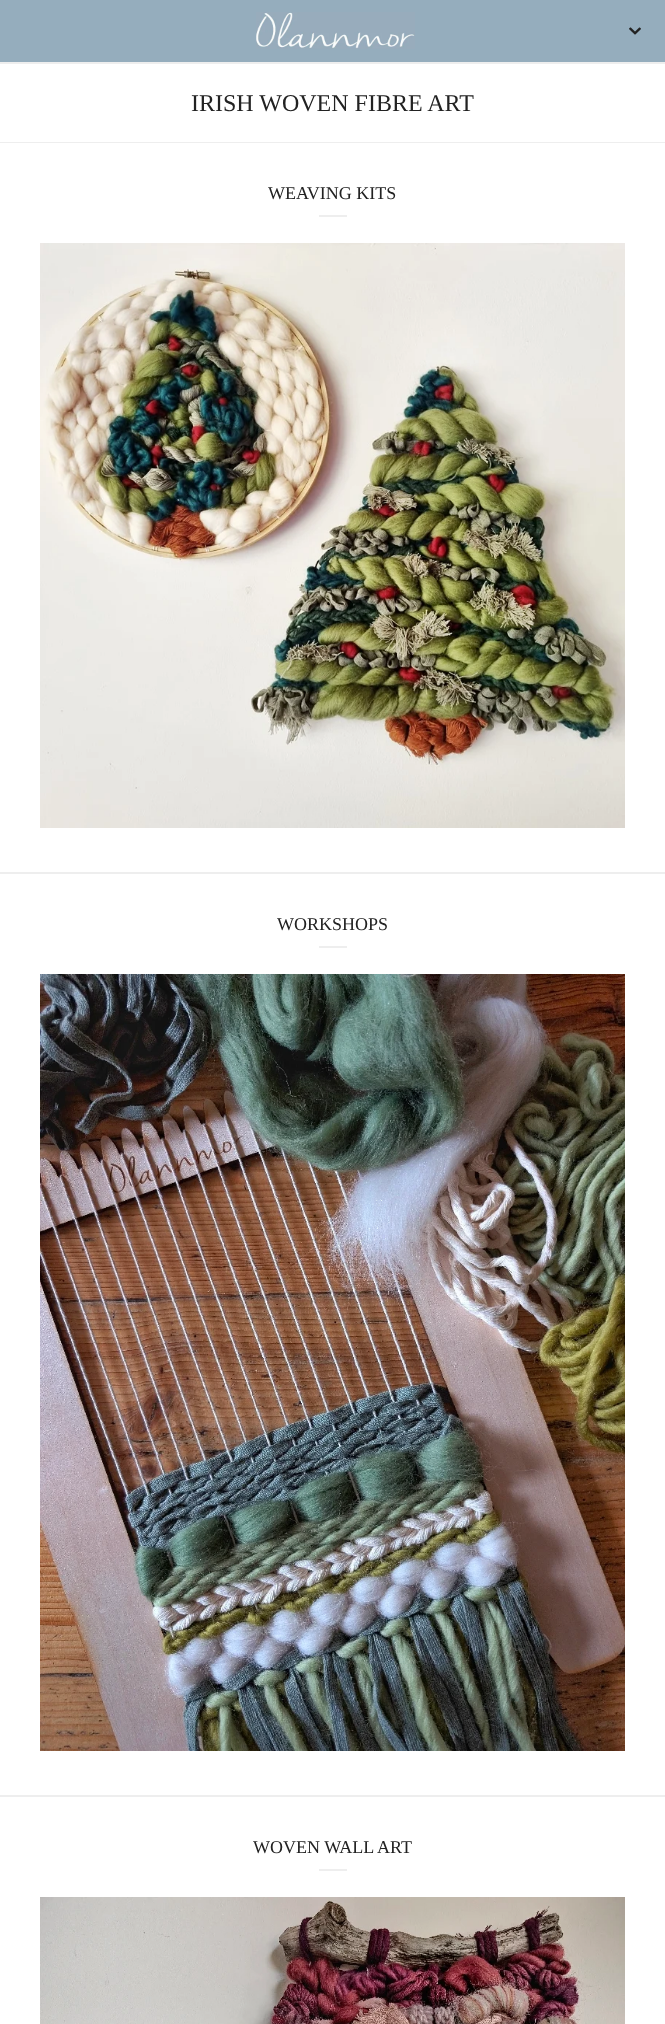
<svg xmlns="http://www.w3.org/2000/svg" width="665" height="2024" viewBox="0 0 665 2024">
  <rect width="100%" height="100%" fill="#fff"/>
  <path d="M0 0h665v62H0z" fill="#95adbd"/>
  <path d="M0 62h665v2H0z" fill="#eee"/>
  <image x="256" y="12" width="159" height="37" href="img/1.png"/>
  <image x="629" y="27" width="12" height="8" href="img/2.png"/>
  <path d="M0 142h665v1H0z" fill="#eee"/>
  <path d="M0 872h665v2H0z" fill="#eee"/>
  <path d="M319 215h28v2H319z" fill="#eee"/>
  <image x="40" y="243" width="585" height="585" href="img/3.png"/>
  <path d="M0 1795h665v2H0z" fill="#eee"/>
  <path d="M319 946h28v2H319z" fill="#eee"/>
  <image x="40" y="974" width="585" height="777" href="img/4.png"/>
  <path d="M319 1869h28v2H319z" fill="#eee"/>
  <image x="40" y="1897" width="585" height="127" href="img/5.png"/>
  <text x="191" y="111" font-family="Liberation Serif" font-size="24" fill="#222">IRISH WOVEN FIBRE ART</text>
  <g font-family="Liberation Serif" font-size="18" fill="#222">
    <text x="268" y="199">WEAVING KITS</text>
    <text x="277" y="930">WORKSHOPS</text>
    <text x="253" y="1853">WOVEN WALL ART</text>
  </g>
</svg>
